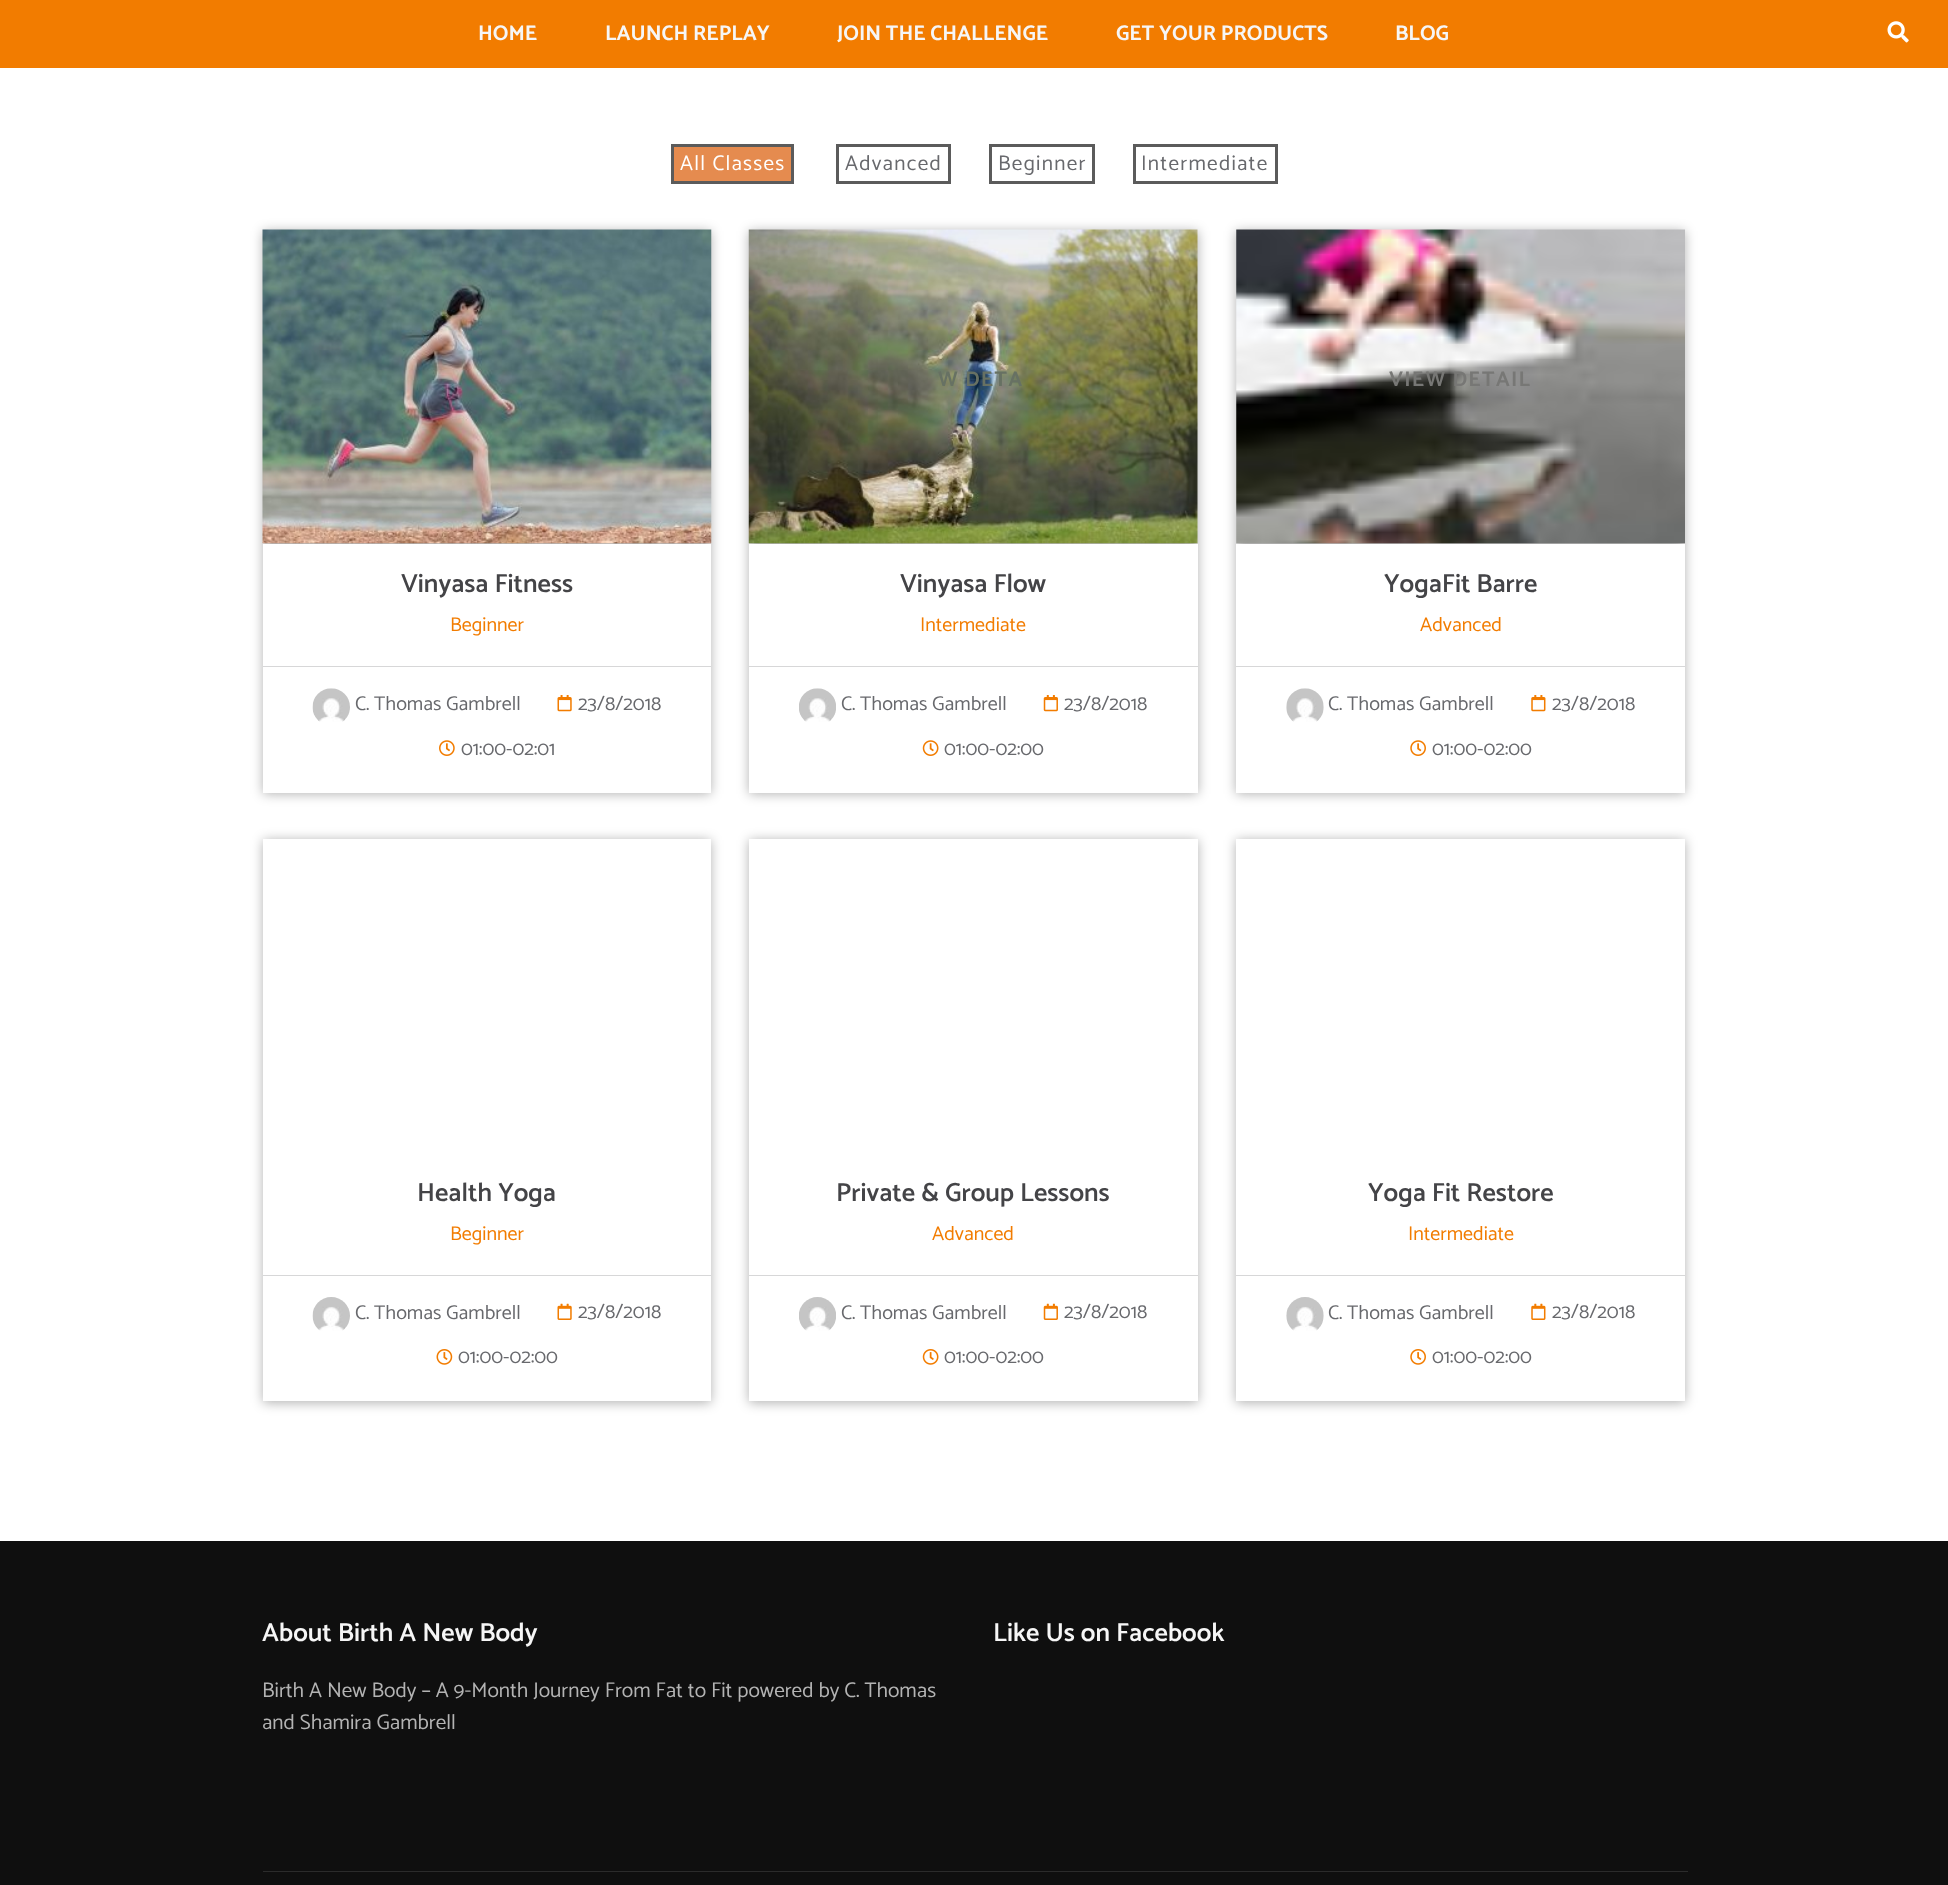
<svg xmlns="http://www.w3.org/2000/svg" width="1948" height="1885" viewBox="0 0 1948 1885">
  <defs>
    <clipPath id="clip1"><path d="M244 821H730V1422H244ZM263 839H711V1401H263Z" clip-rule="evenodd"/></clipPath>
    <clipPath id="clip2"><path d="M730 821H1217V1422H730ZM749 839H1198V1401H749Z" clip-rule="evenodd"/></clipPath>
    <clipPath id="clip3"><path d="M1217 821H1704V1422H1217ZM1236 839H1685V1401H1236Z" clip-rule="evenodd"/></clipPath>
  </defs>
  <rect width="100%" height="100%" fill="#fff"/>
  <path d="M0 0h1948v68H0z" fill="#f27c00"/>
  <image x="1887" y="21" width="22" height="22" href="img/1.png"/>
  <path d="M672.5 145.5h120v37H672.5z" fill="#e58b4f" stroke="#5b5b5b" stroke-width="3"/>
  <path d="M837.5 145.5h112v37H837.5z" fill="none" stroke="#5b5b5b" stroke-width="3"/>
  <path d="M990.5 145.5h103v37H990.5z" fill="none" stroke="#5b5b5b" stroke-width="3"/>
  <path d="M1134.5 145.5h142v37H1134.5z" fill="none" stroke="#5b5b5b" stroke-width="3"/>
  <path d="M263 231h448v563H263z" fill="#0000004d" filter="blur(6px)"/>
  <image x="262" y="229" width="450" height="315" href="img/2.png"/>
  <path d="M263 544h448v249H263z" fill="#fff"/>
  <path d="M263 666h448v1H263z" fill="#d7d7d8"/>
  <image x="312" y="688" width="38" height="34" href="img/3.png"/>
  <image x="557" y="695" width="15" height="17" href="img/4.png"/>
  <image x="439" y="740" width="16" height="16" href="img/5.png"/>
  <path d="M749 231h449v563H749z" fill="#0000004d" filter="blur(6px)"/>
  <image x="748" y="229" width="450" height="315" href="img/6.png"/>
  <path d="M749 544h449v249H749z" fill="#fff"/>
  <path d="M749 666h449v1H749z" fill="#d7d7d8"/>
  <image x="799" y="688" width="37" height="34" href="img/7.png"/>
  <image x="1043" y="695" width="15" height="17" href="img/8.png"/>
  <image x="922" y="740" width="17" height="16" href="img/9.png"/>
  <path d="M1236 231h449v563H1236z" fill="#0000004d" filter="blur(6px)"/>
  <image x="1236" y="229" width="449" height="315" href="img/10.png"/>
  <path d="M1236 544h449v249H1236z" fill="#fff"/>
  <path d="M1236 666h449v1H1236z" fill="#d7d7d8"/>
  <image x="1286" y="688" width="38" height="34" href="img/11.png"/>
  <image x="1531" y="695" width="15" height="17" href="img/12.png"/>
  <image x="1410" y="740" width="16" height="16" href="img/13.png"/>
  <g clip-path="url(#clip1)">
    <path d="M263 840h448v563H263z" fill="#0000004d" filter="blur(6px)"/>
  </g>
  <path d="M263 1275h448v1H263z" fill="#d7d7d8"/>
  <image x="312" y="1297" width="38" height="34" href="img/14.png"/>
  <image x="557" y="1303" width="15" height="17" href="img/15.png"/>
  <image x="436" y="1349" width="17" height="16" href="img/16.png"/>
  <g clip-path="url(#clip2)">
    <path d="M749 840h449v563H749z" fill="#0000004d" filter="blur(6px)"/>
  </g>
  <path d="M1197 1153h1v248H1197z" fill="#fff"/>
  <path d="M749 1275h449v1H749z" fill="#d7d7d8"/>
  <image x="799" y="1297" width="37" height="34" href="img/17.png"/>
  <image x="1043" y="1303" width="15" height="17" href="img/18.png"/>
  <image x="922" y="1349" width="17" height="16" href="img/19.png"/>
  <g clip-path="url(#clip3)">
    <path d="M1236 840h449v563H1236z" fill="#0000004d" filter="blur(6px)"/>
  </g>
  <path d="M1236 1153h1v248H1236z" fill="#fff"/>
  <path d="M1236 1275h449v1H1236z" fill="#d7d7d8"/>
  <image x="1286" y="1297" width="38" height="34" href="img/20.png"/>
  <image x="1531" y="1303" width="15" height="17" href="img/21.png"/>
  <image x="1410" y="1349" width="16" height="16" href="img/22.png"/>
  <path d="M0 1541h1948v344H0z" fill="#0f0f0f"/>
  <path d="M263 1871h1425v1H263z" fill="#2b2b2b"/>
  <g font-family="Catamaran" font-size="21.25" font-weight="bold" fill="#f6f6f6">
    <text x="478" y="40">HOME</text>
    <text x="605" y="40">LAUNCH REPLAY</text>
    <text x="837" y="40">JOIN THE CHALLENGE</text>
    <text x="1116" y="40">GET YOUR PRODUCTS</text>
    <text x="1395" y="40">BLOG</text>
  </g>
  <text x="680" y="170" font-family="Catamaran" font-size="21.25" letter-spacing="1.25" fill="#fff">All Classes</text>
  <g font-family="Catamaran" font-size="21.25" letter-spacing="1.25" fill="#68696d">
    <text x="845" y="170">Advanced</text>
    <text x="998" y="170">Beginner</text>
    <text x="1141" y="170">Intermediate</text>
  </g>
  <text x="401" y="592" font-family="Catamaran" font-size="26.25" font-weight="600" fill="#444447">Vinyasa Fitness</text>
  <text x="450" y="631" font-family="Catamaran" font-size="20" fill="#f27c00">Beginner</text>
  <g font-family="Catamaran" font-size="20" fill="#68696d">
    <text x="355" y="710">C. Thomas Gambrell</text>
    <text x="578" y="710">23/8/2018</text>
    <text x="461" y="755">01:00-02:01</text>
  </g>
  <text x="938" y="386" font-family="Catamaran" font-size="21.25" font-weight="bold" letter-spacing="1.25" fill="#677163">W DETA</text>
  <text x="900" y="592" font-family="Catamaran" font-size="26.25" font-weight="600" fill="#444447">Vinyasa Flow</text>
  <text x="920" y="631" font-family="Catamaran" font-size="20" fill="#f27c00">Intermediate</text>
  <g font-family="Catamaran" font-size="20" fill="#68696d">
    <text x="841" y="710">C. Thomas Gambrell</text>
    <text x="1064" y="710">23/8/2018</text>
    <text x="944" y="755">01:00-02:00</text>
  </g>
  <text x="1389" y="386" font-family="Catamaran" font-size="21.25" font-weight="bold" letter-spacing="1.25" fill="#777775">VIEW DETAIL</text>
  <text x="1384" y="592" font-family="Catamaran" font-size="26.25" font-weight="600" fill="#444447">YogaFit Barre</text>
  <text x="1420" y="631" font-family="Catamaran" font-size="20" fill="#f27c00">Advanced</text>
  <g font-family="Catamaran" font-size="20" fill="#68696d">
    <text x="1328" y="710">C. Thomas Gambrell</text>
    <text x="1552" y="710">23/8/2018</text>
    <text x="1432" y="755">01:00-02:00</text>
  </g>
  <text x="417" y="1201" font-family="Catamaran" font-size="26.25" font-weight="600" fill="#444447">Health Yoga</text>
  <text x="450" y="1240" font-family="Catamaran" font-size="20" fill="#f27c00">Beginner</text>
  <g font-family="Catamaran" font-size="20" fill="#68696d">
    <text x="355" y="1319">C. Thomas Gambrell</text>
    <text x="578" y="1318">23/8/2018</text>
    <text x="458" y="1363">01:00-02:00</text>
  </g>
  <text x="836" y="1201" font-family="Catamaran" font-size="26.25" font-weight="600" fill="#444447">Private &amp; Group Lessons</text>
  <text x="932" y="1240" font-family="Catamaran" font-size="20" fill="#f27c00">Advanced</text>
  <g font-family="Catamaran" font-size="20" fill="#68696d">
    <text x="841" y="1319">C. Thomas Gambrell</text>
    <text x="1064" y="1318">23/8/2018</text>
    <text x="944" y="1363">01:00-02:00</text>
  </g>
  <text x="1368" y="1201" font-family="Catamaran" font-size="26.25" font-weight="600" fill="#444447">Yoga Fit Restore</text>
  <text x="1408" y="1240" font-family="Catamaran" font-size="20" fill="#f27c00">Intermediate</text>
  <g font-family="Catamaran" font-size="20" fill="#68696d">
    <text x="1328" y="1319">C. Thomas Gambrell</text>
    <text x="1552" y="1318">23/8/2018</text>
    <text x="1432" y="1363">01:00-02:00</text>
  </g>
  <text x="262" y="1641" font-family="Catamaran" font-size="26.25" font-weight="600" fill="#f6f6f6">About Birth A New Body</text>
  <g font-family="Catamaran" font-size="21.25" fill="#b3b3b3">
    <text x="262" y="1697">Birth A New Body – A 9-Month Journey From Fat to Fit powered by C. Thomas</text>
    <text x="262" y="1729">and Shamira Gambrell</text>
  </g>
  <text x="993" y="1641" font-family="Catamaran" font-size="26.25" font-weight="600" fill="#f6f6f6">Like Us on Facebook</text>
</svg>
